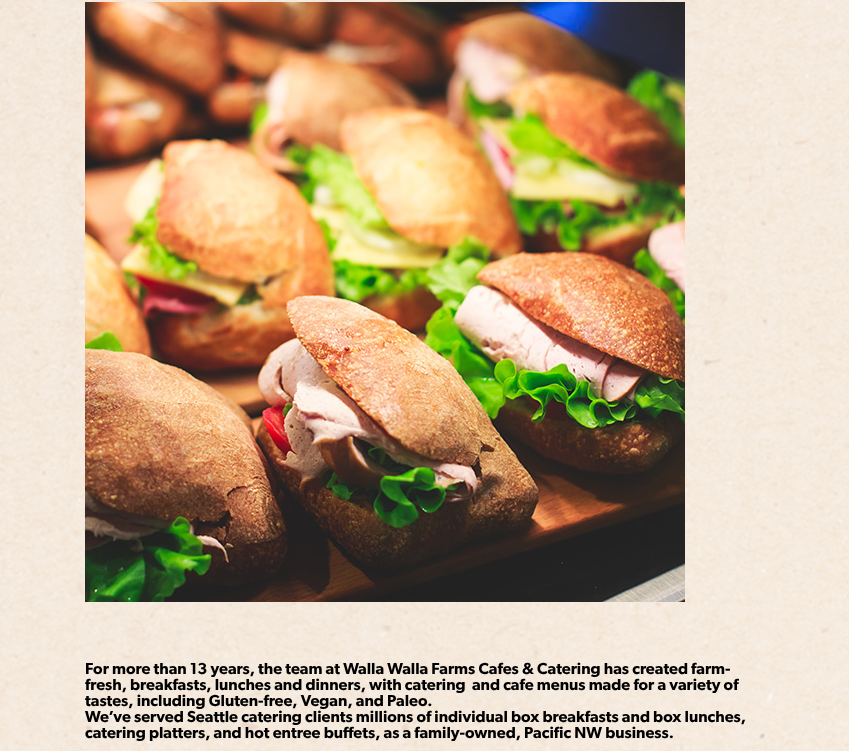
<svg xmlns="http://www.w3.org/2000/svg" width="849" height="751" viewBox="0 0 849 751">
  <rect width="100%" height="100%" fill="#fff"/>
  <image x="0" y="0" width="849" height="751" href="img/1.png"/>
  <image x="85" y="2" width="600" height="600" href="img/2.png"/>
  <g font-family="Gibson" font-size="16" font-weight="600" fill="#000">
    <text x="85" y="674">For more than 13 years, the team at Walla Walla Farms Cafes &amp; Catering has created farm-</text>
    <text x="85" y="690" xml:space="preserve">fresh, breakfasts, lunches and dinners, with catering  and cafe menus made for a variety of</text>
    <text x="85" y="706">tastes, including Gluten-free, Vegan, and Paleo.</text>
    <text x="85" y="722">We’ve served Seattle catering clients millions of individual box breakfasts and box lunches,</text>
    <text x="85" y="738">catering platters, and hot entree buffets, as a family-owned, Pacific NW business.</text>
  </g>
</svg>
